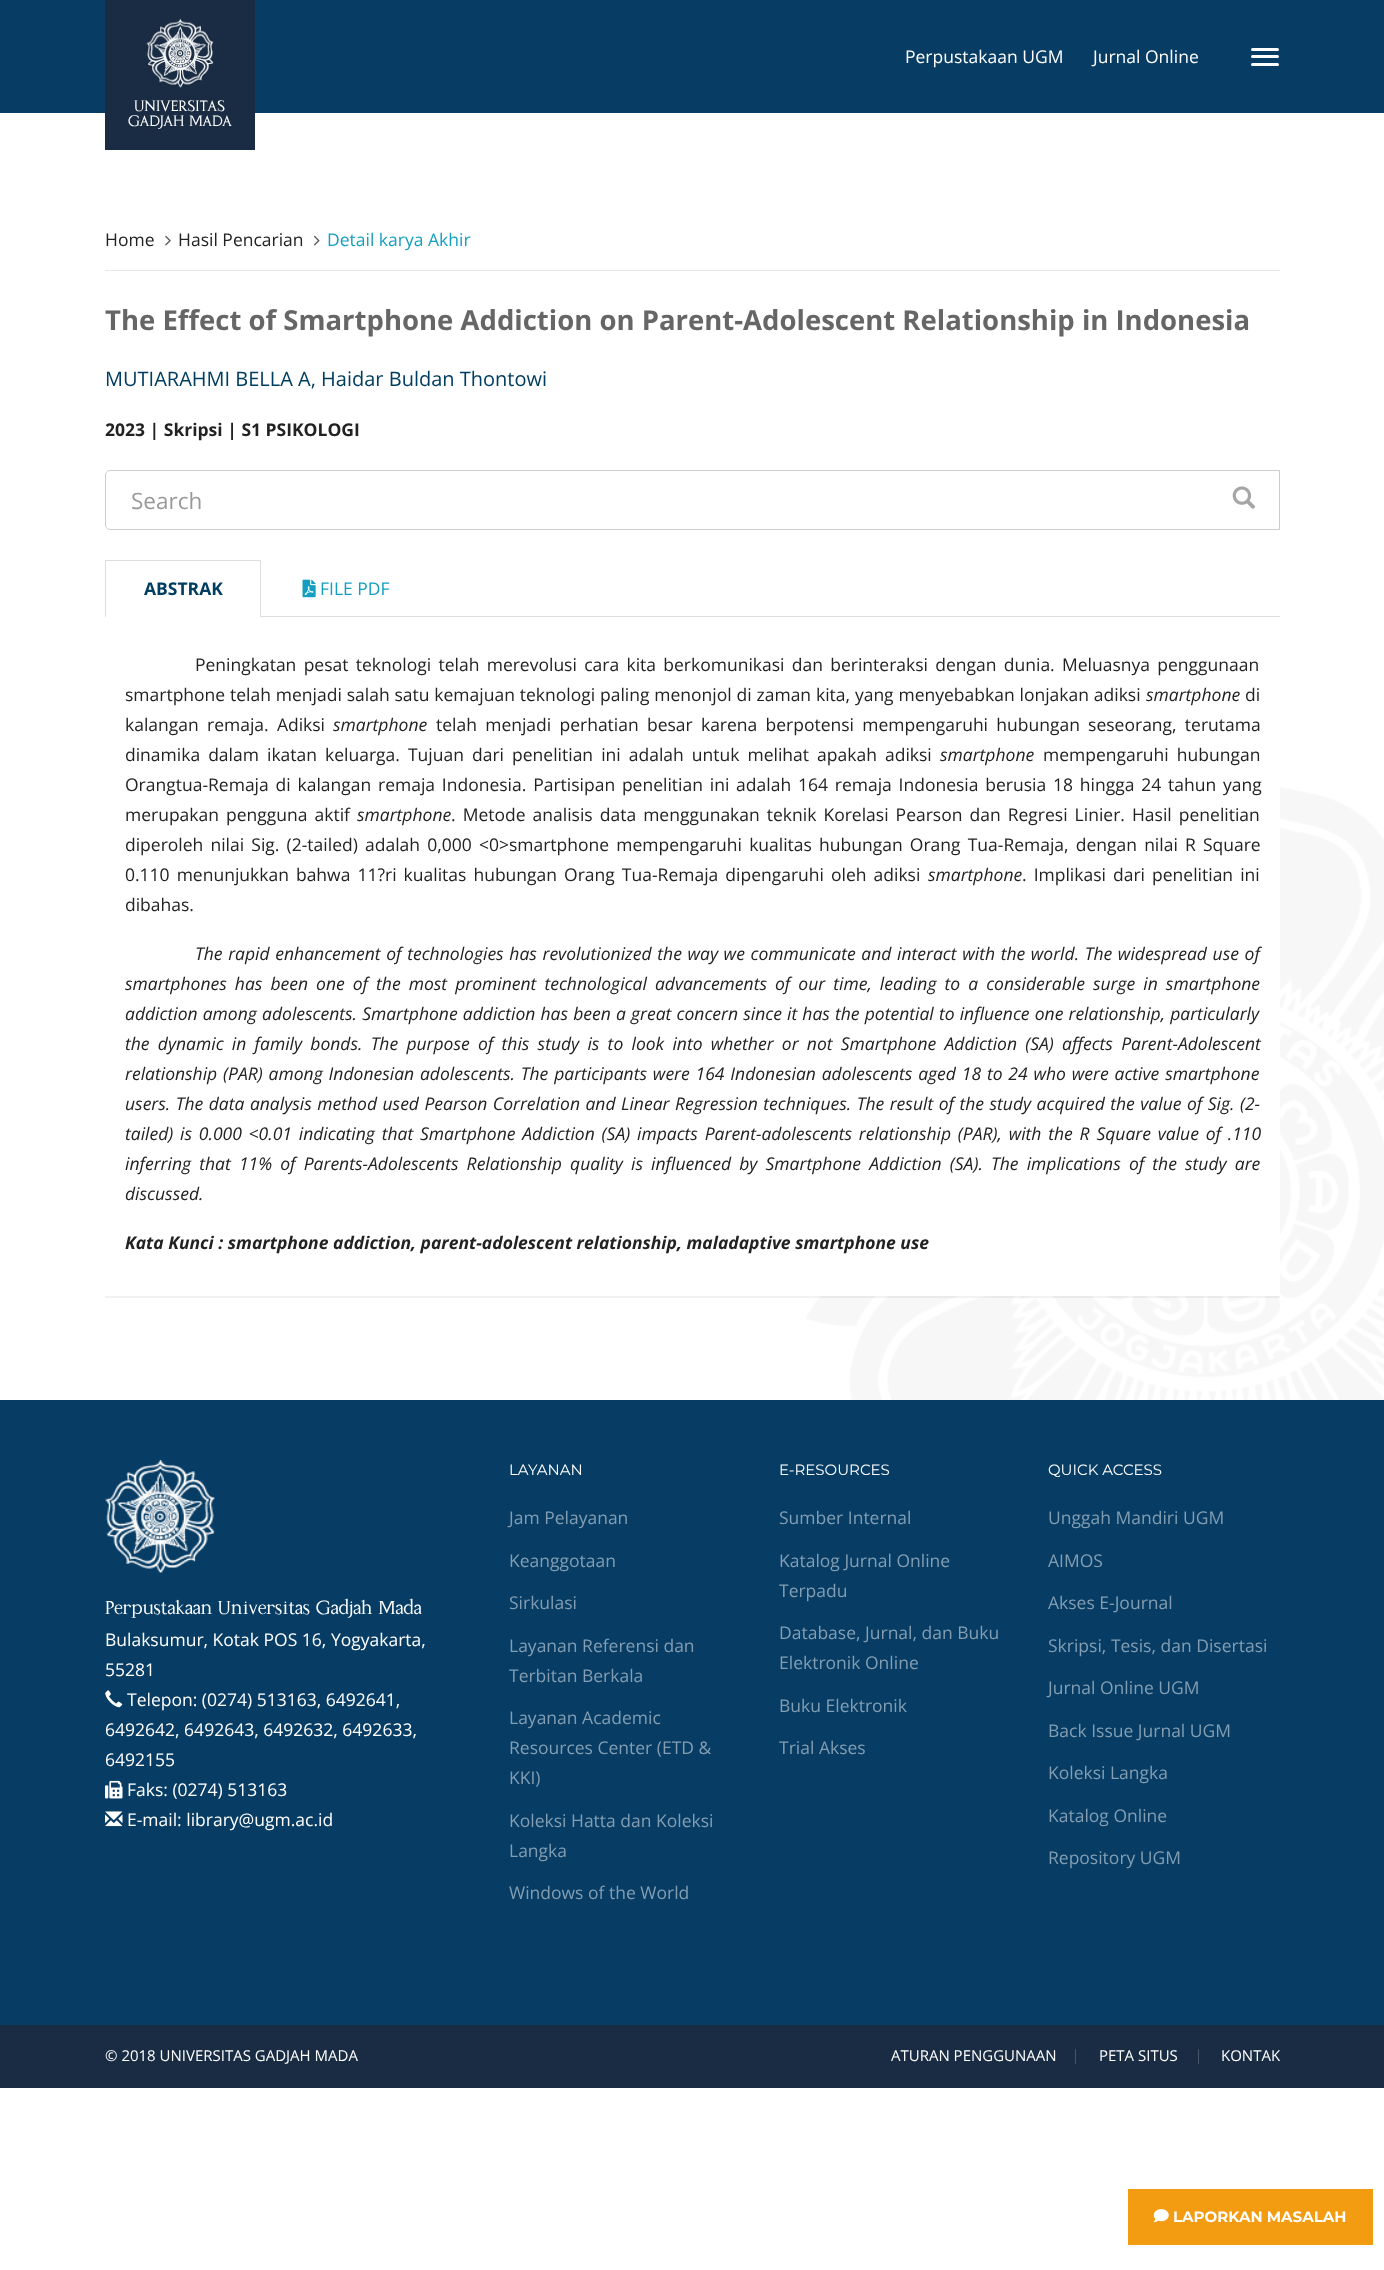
<svg xmlns="http://www.w3.org/2000/svg" width="1384" height="2270" viewBox="0 0 1384 2270">
  <rect width="100%" height="100%" fill="#fff"/>
  <path d="M0 0h1384v113H0z" fill="#073c64"/>
  <rect x="1251" y="48" width="28" height="3" rx="1.5" fill="#fff"/>
  <rect x="1251" y="55" width="28" height="3" rx="1.5" fill="#fff"/>
  <rect x="1251" y="63" width="28" height="3" rx="1.5" fill="#fff"/>
  <path d="M105 0h150v150H105z" fill="#1a2c43"/>
  <image x="146" y="18" width="68" height="70" href="img/1.png"/>
  <image x="805" y="786" width="579" height="614" href="img/2.png"/>
  <path d="M105 270h1175v1H105z" fill="#e6e6e6"/>
  <image x="165" y="235" width="6" height="11" href="img/3.png"/>
  <image x="313" y="235" width="7" height="11" href="img/4.png"/>
  <path d="M110 470.5H1279.5V529.5H110C107.5 529.5 105.5 527.5 105.5 525V475C105.5 472.5 107.5 470.5 110 470.5Z" fill="none" stroke="#ccc"/>
  <image x="1232" y="486" width="24" height="23" href="img/5.png"/>
  <path d="M261 616h1019v1H261z" fill="#ddd"/>
  <path d="M105 560h156v1H105z" fill="#ddd"/>
  <rect x="105" y="619" width="1175" height="679" rx="1" fill="#0000000d" filter="blur(0.5px)"/>
  <path d="M261 560V618L260 616V561Z" fill="#ddd"/>
  <path d="M105 618V560L106 561V616Z" fill="#ddd"/>
  <image x="302" y="579" width="14" height="19" href="img/6.png"/>
  <rect x="105" y="618" width="1175" height="678" rx="1" fill="#fff"/>
  <path d="M0 1400h1384v625H0z" fill="#073c64"/>
  <image x="105" y="1460" width="110" height="113" href="img/7.png"/>
  <image x="105" y="1690" width="18" height="18" href="img/8.png"/>
  <image x="105" y="1780" width="18" height="19" href="img/9.png"/>
  <image x="105" y="1811" width="18" height="16" href="img/10.png"/>
  <path d="M0 2025h1384v63H0z" fill="#1a2c43"/>
  <path d="M1075 2049h1v15H1075z" fill="#485669"/>
  <path d="M1198 2049h1v15H1198z" fill="#485669"/>
  <path d="M1128 2189h245v56H1128z" fill="#f39c12"/>
  <image x="1153" y="2209" width="16" height="14" href="img/11.png"/>
  <g font-family="Open Sans" font-size="17.5" fill="#fff">
    <text x="905" y="63">Perpustakaan UGM</text>
    <text x="1093" y="63">Jurnal Online</text>
  </g>
  <g font-family="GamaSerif" font-size="15" fill="#fff">
    <text x="134" y="111">UNIVERSITAS</text>
    <text x="128" y="126">GADJAH MADA</text>
  </g>
  <g font-family="Open Sans" font-size="17.5" fill="#222">
    <text x="105" y="246">Home</text>
    <text x="178" y="246">Hasil Pencarian</text>
  </g>
  <text x="327" y="246" font-family="Open Sans" font-size="17.5" fill="#149fc0">Detail karya Akhir</text>
  <text x="105" y="330" font-family="Open Sans" font-size="27.5" font-weight="bold" fill="#666">The Effect of Smartphone Addiction on Parent-Adolescent Relationship in Indonesia</text>
  <text x="105" y="386" font-family="Open Sans" font-size="20" fill="#003e61">MUTIARAHMI BELLA A, Haidar Buldan Thontowi</text>
  <text x="105" y="436" font-family="Open Sans" font-size="17.5" font-weight="bold" fill="#222">2023 | Skripsi | S1 PSIKOLOGI</text>
  <text x="131" y="509" font-family="Open Sans" font-size="22.5" fill="#999">Search</text>
  <text x="144" y="595" font-family="Open Sans" font-size="17.5" font-weight="bold" fill="#003e61">ABSTRAK</text>
  <text x="320" y="595" font-family="Open Sans" font-size="17.5" fill="#149fc0">FILE PDF</text>
  <g font-family="Open Sans" font-size="17.5" fill="#222">
    <text x="195" y="671" word-spacing="2.75">Peningkatan pesat teknologi telah merevolusi cara kita berkomunikasi dan berinteraksi dengan dunia. Meluasnya penggunaan</text>
    <text x="125" y="701" word-spacing="0.3">smartphone telah menjadi salah satu kemajuan teknologi paling menonjol di zaman kita, yang menyebabkan lonjakan adiksi</text>
  </g>
  <text x="1146" y="701" font-family="Open Sans" font-size="17.5" font-style="italic" fill="#222">smartphone</text>
  <g font-family="Open Sans" font-size="17.5" fill="#222">
    <text x="1245" y="701">di</text>
    <text x="125" y="731" word-spacing="3.7">kalangan remaja. Adiksi</text>
  </g>
  <text x="333" y="731" font-family="Open Sans" font-size="17.5" font-style="italic" fill="#222">smartphone</text>
  <g font-family="Open Sans" font-size="17.5" fill="#222">
    <text x="436" y="731" word-spacing="3.7">telah menjadi perhatian besar karena berpotensi mempengaruhi hubungan seseorang, terutama</text>
    <text x="125" y="761" word-spacing="3.5">dinamika dalam ikatan keluarga. Tujuan dari penelitian ini adalah untuk melihat apakah adiksi</text>
  </g>
  <text x="940" y="761" font-family="Open Sans" font-size="17.5" font-style="italic" fill="#222">smartphone</text>
  <g font-family="Open Sans" font-size="17.5" fill="#222">
    <text x="1043" y="761" word-spacing="3.5">mempengaruhi hubungan</text>
    <text x="125" y="791" word-spacing="2.25">Orangtua-Remaja di kalangan remaja Indonesia. Partisipan penelitian ini adalah 164 remaja Indonesia berusia 18 hingga 24 tahun yang</text>
    <text x="125" y="821" word-spacing="2.5">merupakan pengguna aktif</text>
  </g>
  <text x="357" y="821" font-family="Open Sans" font-size="17.5" font-style="italic" fill="#222">smartphone</text>
  <g font-family="Open Sans" font-size="17.5" fill="#222">
    <text x="451" y="821" word-spacing="2.5">. Metode analisis data menggunakan teknik Korelasi Pearson dan Regresi Linier. Hasil penelitian</text>
    <text x="125" y="851" word-spacing="2.6">diperoleh nilai Sig. (2-tailed) adalah 0,000 &lt;0&gt;smartphone mempengaruhi kualitas hubungan Orang Tua-Remaja, dengan nilai R Square</text>
    <text x="125" y="881" word-spacing="2.5">0.110 menunjukkan bahwa 11?ri kualitas hubungan Orang Tua-Remaja dipengaruhi oleh adiksi</text>
  </g>
  <text x="928" y="881" font-family="Open Sans" font-size="17.5" font-style="italic" fill="#222">smartphone</text>
  <g font-family="Open Sans" font-size="17.5" fill="#222">
    <text x="1022" y="881" word-spacing="2.5">. Implikasi dari penelitian ini</text>
    <text x="125" y="911">dibahas.</text>
  </g>
  <g font-family="Open Sans" font-size="17.5" font-style="italic" fill="#222">
    <text x="195" y="960" word-spacing="1.1">The rapid enhancement of technologies has revolutionized the way we communicate and interact with the world. The widespread use of</text>
    <text x="125" y="990" word-spacing="3.5">smartphones has been one of the most prominent technological advancements of our time, leading to a considerable surge in smartphone</text>
    <text x="125" y="1020" word-spacing="0.6">addiction among adolescents. Smartphone addiction has been a great concern since it has the potential to influence one relationship, particularly</text>
    <text x="125" y="1050" word-spacing="3.7">the dynamic in family bonds. The purpose of this study is to look into whether or not Smartphone Addiction (SA) affects Parent-Adolescent</text>
    <text x="125" y="1080" word-spacing="1.3">relationship (PAR) among Indonesian adolescents. The participants were 164 Indonesian adolescents aged 18 to 24 who were active smartphone</text>
    <text x="125" y="1110" word-spacing="0.95">users. The data analysis method used Pearson Correlation and Linear Regression techniques. The result of the study acquired the value of Sig. (2-</text>
    <text x="125" y="1140" word-spacing="2.25">tailed) is 0.000 &lt;0.01 indicating that Smartphone Addiction (SA) impacts Parent-adolescents relationship (PAR), with the R Square value of .110</text>
    <text x="125" y="1170" word-spacing="3.6">inferring that 11% of Parents-Adolescents Relationship quality is influenced by Smartphone Addiction (SA). The implications of the study are</text>
    <text x="125" y="1200">discussed.</text>
  </g>
  <text x="125" y="1249" font-family="Open Sans" font-size="17.5" font-weight="bold" font-style="italic" fill="#222">Kata Kunci : smartphone addiction, parent-adolescent relationship, maladaptive smartphone use</text>
  <text x="105" y="1614" font-family="GamaSerif" font-size="18.75" fill="#fff">Perpustakaan Universitas Gadjah Mada</text>
  <g font-family="Open Sans" font-size="17.5" fill="#fff">
    <text x="105" y="1646">Bulaksumur, Kotak POS 16, Yogyakarta,</text>
    <text x="105" y="1676">55281</text>
    <text x="127" y="1706">Telepon: (0274) 513163, 6492641,</text>
    <text x="105" y="1736">6492642, 6492643, 6492632, 6492633,</text>
    <text x="105" y="1766">6492155</text>
    <text x="127" y="1796">Faks: (0274) 513163</text>
    <text x="127" y="1826">E-mail: library@ugm.ac.id</text>
  </g>
  <text x="509" y="1475" font-family="Montserrat" font-size="15" fill="#fff">LAYANAN</text>
  <g font-family="Open Sans" font-size="17.5" fill="#839eb2">
    <text x="509" y="1524">Jam Pelayanan</text>
    <text x="509" y="1567">Keanggotaan</text>
    <text x="509" y="1609">Sirkulasi</text>
    <text x="509" y="1652">Layanan Referensi dan</text>
    <text x="509" y="1682">Terbitan Berkala</text>
    <text x="509" y="1724">Layanan Academic</text>
    <text x="509" y="1754">Resources Center (ETD &amp;</text>
    <text x="509" y="1784">KKI)</text>
    <text x="509" y="1827">Koleksi Hatta dan Koleksi</text>
    <text x="509" y="1857">Langka</text>
    <text x="509" y="1899">Windows of the World</text>
  </g>
  <text x="779" y="1475" font-family="Montserrat" font-size="15" fill="#fff">E-RESOURCES</text>
  <g font-family="Open Sans" font-size="17.5" fill="#839eb2">
    <text x="779" y="1524">Sumber Internal</text>
    <text x="779" y="1567">Katalog Jurnal Online</text>
    <text x="779" y="1597">Terpadu</text>
    <text x="779" y="1639">Database, Jurnal, dan Buku</text>
    <text x="779" y="1669">Elektronik Online</text>
    <text x="779" y="1712">Buku Elektronik</text>
    <text x="779" y="1754">Trial Akses</text>
  </g>
  <text x="1048" y="1475" font-family="Montserrat" font-size="15" fill="#fff">QUICK ACCESS</text>
  <g font-family="Open Sans" font-size="17.5" fill="#839eb2">
    <text x="1048" y="1524">Unggah Mandiri UGM</text>
    <text x="1048" y="1567">AIMOS</text>
    <text x="1048" y="1609">Akses E-Journal</text>
    <text x="1048" y="1652">Skripsi, Tesis, dan Disertasi</text>
    <text x="1048" y="1694">Jurnal Online UGM</text>
    <text x="1048" y="1737">Back Issue Jurnal UGM</text>
    <text x="1048" y="1779">Koleksi Langka</text>
    <text x="1048" y="1822">Katalog Online</text>
    <text x="1048" y="1864">Repository UGM</text>
  </g>
  <g font-family="Open Sans" font-size="15" fill="#fff">
    <text x="105" y="2061">© 2018 UNIVERSITAS GADJAH MADA</text>
    <text x="891" y="2061">ATURAN PENGGUNAAN</text>
    <text x="1099" y="2061">PETA SITUS</text>
    <text x="1221" y="2061">KONTAK</text>
  </g>
  <text x="1173" y="2222" font-family="Montserrat" font-size="15" font-weight="bold" fill="#fff">LAPORKAN MASALAH</text>
</svg>
